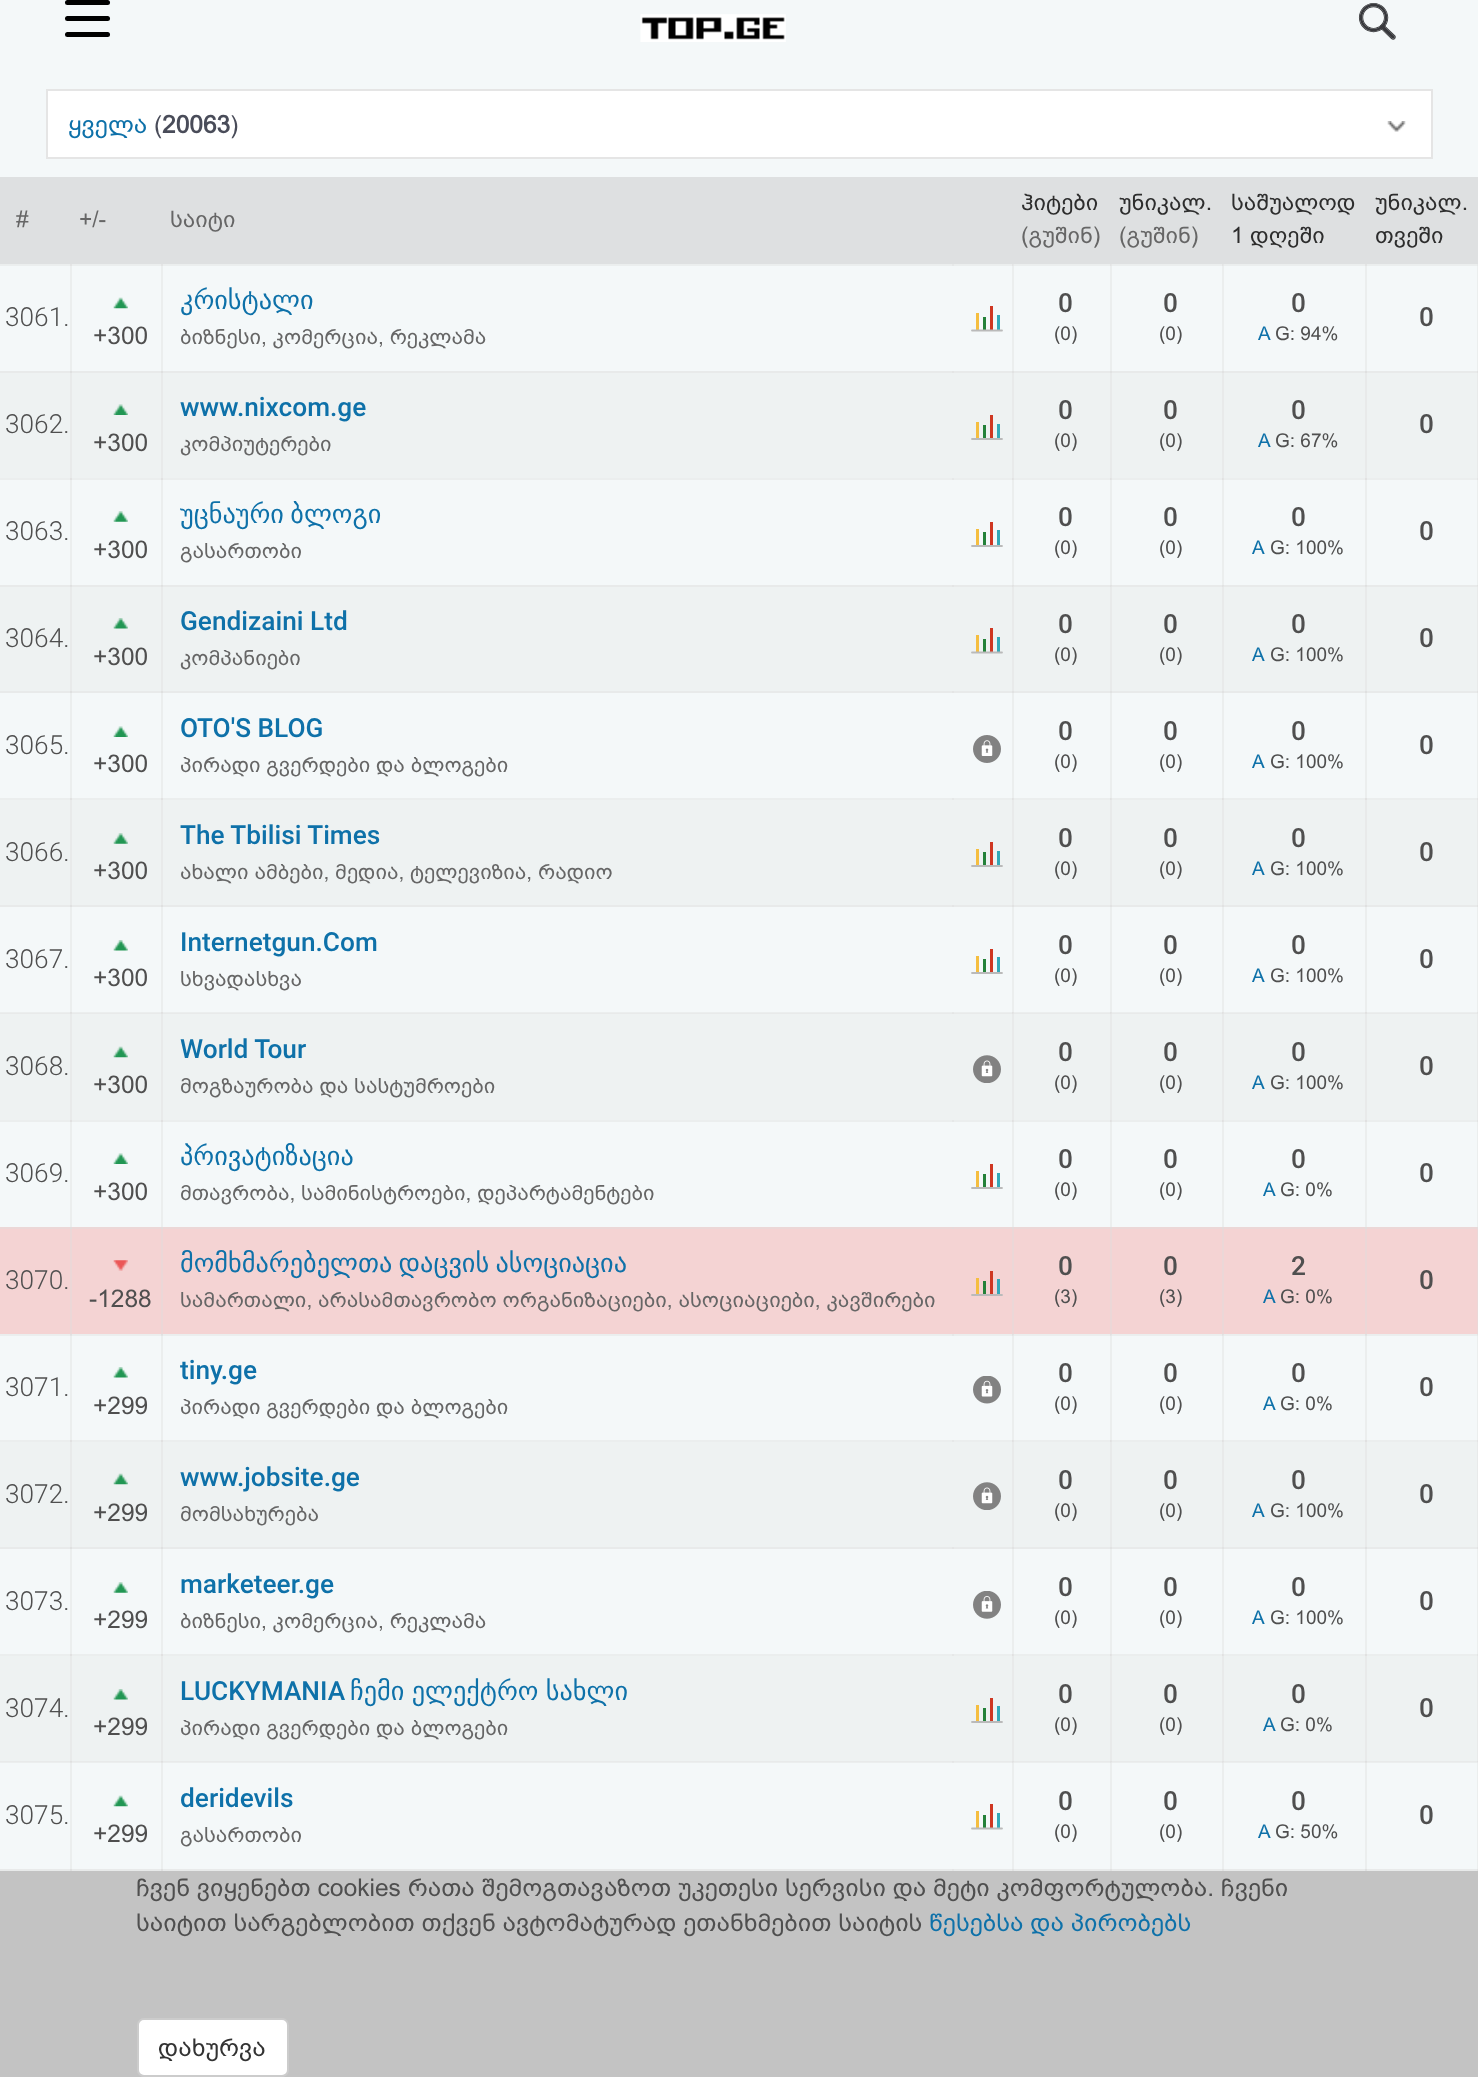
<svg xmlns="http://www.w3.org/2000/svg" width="1478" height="2077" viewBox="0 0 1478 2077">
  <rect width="100%" height="100%" fill="#f4f8f9"/>
  <path d="M70 264h2v109H70z" fill="#ebeeee"/>
  <path d="M0 264h72v2H0z" fill="#ebeeee"/>
  <path d="M161 264h2v109H161z" fill="#ebeeee"/>
  <path d="M70 264h884v2H70z" fill="#ebeeee"/>
  <path d="M70 264h2v2H70z" fill="#e3e4e4"/>
  <path d="M161 264h2v2H161z" fill="#e3e4e4"/>
  <path d="M1012 264h2v109H1012z" fill="#ebeeee"/>
  <path d="M952 264h61v2H952z" fill="#ebeeee"/>
  <path d="M952 264h2v2H952z" fill="#e6e8e8"/>
  <path d="M1110 264h2v109H1110z" fill="#ebeeee"/>
  <path d="M1012 264h99v2H1012z" fill="#ebeeee"/>
  <path d="M1012 264h2v2H1012z" fill="#e6e8e8"/>
  <path d="M1012 264h1v2H1012z" fill="#e3e4e4"/>
  <path d="M1222 264h2v109H1222z" fill="#ebeeee"/>
  <path d="M1110 264h113v2H1110z" fill="#ebeeee"/>
  <path d="M1110 264h2v2H1110z" fill="#e6e8e8"/>
  <path d="M1110 264h1v2H1110z" fill="#e3e4e4"/>
  <path d="M1365 264h2v109H1365z" fill="#ebeeee"/>
  <path d="M1222 264h145v2H1222z" fill="#ebeeee"/>
  <path d="M1222 264h2v2H1222z" fill="#e6e8e8"/>
  <path d="M1222 264h1v2H1222z" fill="#e3e4e4"/>
  <path d="M1477 264h1v109H1477z" fill="#ebeeee"/>
  <path d="M70 478h2v108H70z" fill="#ebeeee"/>
  <path d="M0 478h72v2H0z" fill="#ebeeee"/>
  <path d="M161 478h2v108H161z" fill="#ebeeee"/>
  <path d="M70 478h884v2H70z" fill="#ebeeee"/>
  <path d="M70 478h2v2H70z" fill="#e1e1e1"/>
  <path d="M161 478h2v2H161z" fill="#e1e1e1"/>
  <path d="M1012 478h2v108H1012z" fill="#ebeeee"/>
  <path d="M952 478h61v2H952z" fill="#ebeeee"/>
  <path d="M952 478h2v2H952z" fill="#e6e8e8"/>
  <path d="M1110 478h2v108H1110z" fill="#ebeeee"/>
  <path d="M1012 478h99v2H1012z" fill="#ebeeee"/>
  <path d="M1012 478h2v2H1012z" fill="#e3e4e4"/>
  <path d="M1012 478h1v2H1012z" fill="#e1e1e1"/>
  <path d="M1222 478h2v108H1222z" fill="#ebeeee"/>
  <path d="M1110 478h113v2H1110z" fill="#ebeeee"/>
  <path d="M1110 478h2v2H1110z" fill="#e3e4e4"/>
  <path d="M1110 478h1v2H1110z" fill="#e1e1e1"/>
  <path d="M1365 478h2v108H1365z" fill="#ebeeee"/>
  <path d="M1222 478h145v2H1222z" fill="#ebeeee"/>
  <path d="M1222 478h2v2H1222z" fill="#e3e4e4"/>
  <path d="M1222 478h1v2H1222z" fill="#e1e1e1"/>
  <path d="M1477 478h1v108H1477z" fill="#ebeeee"/>
  <path d="M70 691h2v109H70z" fill="#ebeeee"/>
  <path d="M161 691h2v109H161z" fill="#ebeeee"/>
  <path d="M1012 691h2v109H1012z" fill="#ebeeee"/>
  <path d="M1110 691h2v109H1110z" fill="#ebeeee"/>
  <path d="M1222 691h2v109H1222z" fill="#ebeeee"/>
  <path d="M1365 691h2v109H1365z" fill="#ebeeee"/>
  <path d="M1477 691h1v109H1477z" fill="#ebeeee"/>
  <path d="M0 798h1367v2H0z" fill="#ebeeee"/>
  <path d="M70 798h2v2H70z" fill="#e1e1e1"/>
  <path d="M161 798h2v2H161z" fill="#e1e1e1"/>
  <path d="M952 798h2v2H952z" fill="#e6e8e8"/>
  <path d="M1012 798h2v2H1012z" fill="#e3e4e4"/>
  <path d="M1012 798h1v2H1012z" fill="#e1e1e1"/>
  <path d="M1110 798h2v2H1110z" fill="#e3e4e4"/>
  <path d="M1110 798h1v2H1110z" fill="#e1e1e1"/>
  <path d="M1222 798h2v2H1222z" fill="#e3e4e4"/>
  <path d="M1222 798h1v2H1222z" fill="#e1e1e1"/>
  <path d="M70 905h2v108H70z" fill="#ebeeee"/>
  <path d="M161 905h2v108H161z" fill="#ebeeee"/>
  <path d="M1012 905h2v108H1012z" fill="#ebeeee"/>
  <path d="M1110 905h2v108H1110z" fill="#ebeeee"/>
  <path d="M1222 905h2v108H1222z" fill="#ebeeee"/>
  <path d="M1365 905h2v108H1365z" fill="#ebeeee"/>
  <path d="M1477 905h1v108H1477z" fill="#ebeeee"/>
  <path d="M0 1012h1478v1H0z" fill="#ebeeee"/>
  <path d="M70 1012h2v1H70z" fill="#e1e1e1"/>
  <path d="M161 1012h2v1H161z" fill="#e1e1e1"/>
  <path d="M952 1012h2v1H952z" fill="#e6e8e8"/>
  <path d="M1012 1012h2v1H1012z" fill="#e3e4e4"/>
  <path d="M1012 1012h1v1H1012z" fill="#e1e1e1"/>
  <path d="M1110 1012h2v1H1110z" fill="#e3e4e4"/>
  <path d="M1110 1012h1v1H1110z" fill="#e1e1e1"/>
  <path d="M1222 1012h2v1H1222z" fill="#e3e4e4"/>
  <path d="M1222 1012h1v1H1222z" fill="#e1e1e1"/>
  <path d="M1365 1012h2v1H1365z" fill="#e1e1e1"/>
  <path d="M1477 1012h1v1H1477z" fill="#e3e4e4"/>
  <path d="M70 1120h2v109H70z" fill="#ebeeee"/>
  <path d="M0 1120h72v2H0z" fill="#ebeeee"/>
  <path d="M161 1120h2v109H161z" fill="#ebeeee"/>
  <path d="M70 1120h884v2H70z" fill="#ebeeee"/>
  <path d="M70 1120h2v2H70z" fill="#e1e1e1"/>
  <path d="M161 1120h2v2H161z" fill="#e1e1e1"/>
  <path d="M1012 1120h2v109H1012z" fill="#ebeeee"/>
  <path d="M952 1120h61v2H952z" fill="#ebeeee"/>
  <path d="M952 1120h2v2H952z" fill="#e6e8e8"/>
  <path d="M1110 1120h2v109H1110z" fill="#ebeeee"/>
  <path d="M1012 1120h99v2H1012z" fill="#ebeeee"/>
  <path d="M1012 1120h2v2H1012z" fill="#e3e4e4"/>
  <path d="M1012 1120h1v2H1012z" fill="#e1e1e1"/>
  <path d="M1222 1120h2v109H1222z" fill="#ebeeee"/>
  <path d="M1110 1120h113v2H1110z" fill="#ebeeee"/>
  <path d="M1110 1120h2v2H1110z" fill="#e3e4e4"/>
  <path d="M1110 1120h1v2H1110z" fill="#e1e1e1"/>
  <path d="M1365 1120h2v109H1365z" fill="#ebeeee"/>
  <path d="M1222 1120h145v2H1222z" fill="#ebeeee"/>
  <path d="M1222 1120h2v2H1222z" fill="#e3e4e4"/>
  <path d="M1222 1120h1v2H1222z" fill="#e1e1e1"/>
  <path d="M1477 1120h1v109H1477z" fill="#ebeeee"/>
  <path d="M70 1334h2v108H70z" fill="#ebeeee"/>
  <path d="M0 1334h72v2H0z" fill="#ebeeee"/>
  <path d="M161 1334h2v108H161z" fill="#ebeeee"/>
  <path d="M70 1334h884v2H70z" fill="#ebeeee"/>
  <path d="M70 1335h2v1H70z" fill="#e3e4e4"/>
  <path d="M70 1334h2v1H70z" fill="#e1e1e1"/>
  <path d="M161 1335h2v1H161z" fill="#e3e4e4"/>
  <path d="M161 1334h2v1H161z" fill="#e1e1e1"/>
  <path d="M1012 1334h2v108H1012z" fill="#ebeeee"/>
  <path d="M952 1334h61v2H952z" fill="#ebeeee"/>
  <path d="M952 1334h2v2H952z" fill="#e6e8e8"/>
  <path d="M1110 1334h2v108H1110z" fill="#ebeeee"/>
  <path d="M1012 1334h99v2H1012z" fill="#ebeeee"/>
  <path d="M1012 1335h2v1H1012z" fill="#e6e8e8"/>
  <path d="M1012 1334h2v1H1012z" fill="#e3e4e4"/>
  <path d="M1012 1334h1v2H1012z" fill="#e3e4e4"/>
  <path d="M1012 1334h1v1H1012z" fill="#e1e1e1"/>
  <path d="M1222 1334h2v108H1222z" fill="#ebeeee"/>
  <path d="M1110 1334h113v2H1110z" fill="#ebeeee"/>
  <path d="M1110 1335h2v1H1110z" fill="#e6e8e8"/>
  <path d="M1110 1334h2v1H1110z" fill="#e3e4e4"/>
  <path d="M1110 1334h1v2H1110z" fill="#e3e4e4"/>
  <path d="M1110 1334h1v1H1110z" fill="#e1e1e1"/>
  <path d="M1365 1334h2v108H1365z" fill="#ebeeee"/>
  <path d="M1222 1334h145v2H1222z" fill="#ebeeee"/>
  <path d="M1222 1335h2v1H1222z" fill="#e6e8e8"/>
  <path d="M1222 1334h2v1H1222z" fill="#e3e4e4"/>
  <path d="M1222 1334h1v2H1222z" fill="#e3e4e4"/>
  <path d="M1222 1334h1v1H1222z" fill="#e1e1e1"/>
  <path d="M1477 1334h1v108H1477z" fill="#ebeeee"/>
  <path d="M0 1440h1367v2H0z" fill="#ebeeee"/>
  <path d="M70 1440h2v2H70z" fill="#e1e1e1"/>
  <path d="M161 1440h2v2H161z" fill="#e1e1e1"/>
  <path d="M952 1440h2v2H952z" fill="#e6e8e8"/>
  <path d="M1012 1440h2v2H1012z" fill="#e3e4e4"/>
  <path d="M1012 1440h1v2H1012z" fill="#e1e1e1"/>
  <path d="M1110 1440h2v2H1110z" fill="#e3e4e4"/>
  <path d="M1110 1440h1v2H1110z" fill="#e1e1e1"/>
  <path d="M1222 1440h2v2H1222z" fill="#e3e4e4"/>
  <path d="M1222 1440h1v2H1222z" fill="#e1e1e1"/>
  <path d="M70 1547h2v109H70z" fill="#ebeeee"/>
  <path d="M161 1547h2v109H161z" fill="#ebeeee"/>
  <path d="M1012 1547h2v109H1012z" fill="#ebeeee"/>
  <path d="M1110 1547h2v109H1110z" fill="#ebeeee"/>
  <path d="M1222 1547h2v109H1222z" fill="#ebeeee"/>
  <path d="M1365 1547h2v109H1365z" fill="#ebeeee"/>
  <path d="M1477 1547h1v109H1477z" fill="#ebeeee"/>
  <path d="M0 1654h1478v2H0z" fill="#ebeeee"/>
  <path d="M70 1654h2v2H70z" fill="#e1e1e1"/>
  <path d="M161 1654h2v2H161z" fill="#e1e1e1"/>
  <path d="M952 1654h2v2H952z" fill="#e6e8e8"/>
  <path d="M1012 1654h2v2H1012z" fill="#e3e4e4"/>
  <path d="M1012 1654h1v2H1012z" fill="#e1e1e1"/>
  <path d="M1110 1654h2v2H1110z" fill="#e3e4e4"/>
  <path d="M1110 1654h1v2H1110z" fill="#e1e1e1"/>
  <path d="M1222 1654h2v2H1222z" fill="#e3e4e4"/>
  <path d="M1222 1654h1v2H1222z" fill="#e1e1e1"/>
  <path d="M70 1761h2v110H70z" fill="#ebeeee"/>
  <path d="M0 1762h72v1H0z" fill="#ebeeee"/>
  <path d="M161 1761h2v110H161z" fill="#ebeeee"/>
  <path d="M70 1762h884v1H70z" fill="#ebeeee"/>
  <path d="M70 1762h2v1H70z" fill="#e3e4e4"/>
  <path d="M161 1762h2v1H161z" fill="#e3e4e4"/>
  <path d="M1012 1761h2v110H1012z" fill="#ebeeee"/>
  <path d="M952 1762h61v1H952z" fill="#ebeeee"/>
  <path d="M952 1762h2v1H952z" fill="#e6e8e8"/>
  <path d="M1110 1761h2v110H1110z" fill="#ebeeee"/>
  <path d="M1012 1762h99v1H1012z" fill="#ebeeee"/>
  <path d="M1012 1762h2v1H1012z" fill="#e6e8e8"/>
  <path d="M1012 1761h1v2H1012z" fill="#e3e4e4"/>
  <path d="M1222 1761h2v110H1222z" fill="#ebeeee"/>
  <path d="M1110 1762h113v1H1110z" fill="#ebeeee"/>
  <path d="M1110 1762h2v1H1110z" fill="#e6e8e8"/>
  <path d="M1110 1761h1v2H1110z" fill="#e3e4e4"/>
  <path d="M1365 1761h2v110H1365z" fill="#ebeeee"/>
  <path d="M1222 1762h145v1H1222z" fill="#ebeeee"/>
  <path d="M1222 1762h2v1H1222z" fill="#e6e8e8"/>
  <path d="M1222 1761h1v2H1222z" fill="#e3e4e4"/>
  <path d="M1477 1761h1v110H1477z" fill="#ebeeee"/>
  <path d="M1365 1762h113v1H1365z" fill="#ebeeee"/>
  <path d="M1365 1762h2v1H1365z" fill="#e3e4e4"/>
  <path d="M1477 1761h1v2H1477z" fill="#e6e8e8"/>
  <rect x="65" width="45" height="5" rx="2.5" fill="#000"/>
  <rect x="65" y="16" width="45" height="5" rx="2.5" fill="#000"/>
  <rect x="65" y="32" width="45" height="5" rx="2.5" fill="#000"/>
  <image x="640" y="14" width="146" height="28" href="img/1.png"/>
  <image x="1358" y="3" width="38" height="37" href="img/2.png"/>
  <path d="M47 90h1385v68H47z" fill="#fff" stroke="#e5e5e5" stroke-width="2"/>
  <image x="1387" y="121" width="19" height="11" href="img/3.png"/>
  <path d="M0 177h1478v87H0z" fill="#dee0e1"/>
  <path d="M976 313h3v18H976z" fill="#f5be40"/>
  <path d="M983 317h3v14H983z" fill="#248139"/>
  <path d="M990 306h3v25H990z" fill="#cf3722"/>
  <path d="M997 315h3v16H997z" fill="#32a9b8"/>
  <path d="M972 330.5H1002" fill="none" stroke="#bababa" stroke-width="1.8" stroke-linecap="round" stroke-linejoin="round"/>
  <path d="M1365 264h113v2H1365z" fill="#ebeeee"/>
  <path d="M1365 264h2v2H1365z" fill="#e3e4e4"/>
  <path d="M1477 264h1v2H1477z" fill="#e6e8e8"/>
  <image x="113" y="297" width="15" height="12" href="img/4.png"/>
  <path d="M0 373h1477v105H0z" fill="#eef2f2"/>
  <path d="M70 371h2v107H70z" fill="#e8eaea"/>
  <path d="M0 371h72v2H0z" fill="#e8eaea"/>
  <path d="M161 371h2v107H161z" fill="#e8eaea"/>
  <path d="M70 371h884v2H70z" fill="#e8eaea"/>
  <path d="M70 371h2v2H70z" fill="#dfe0e0"/>
  <path d="M161 371h2v2H161z" fill="#dfe0e0"/>
  <path d="M1012 371h2v107H1012z" fill="#e8eaea"/>
  <path d="M952 371h61v2H952z" fill="#e8eaea"/>
  <path d="M952 371h2v2H952z" fill="#e4e5e5"/>
  <path d="M1110 371h2v107H1110z" fill="#e8eaea"/>
  <path d="M1012 371h99v2H1012z" fill="#e8eaea"/>
  <path d="M1012 371h2v2H1012z" fill="#e1e2e2"/>
  <path d="M1222 371h2v107H1222z" fill="#e8eaea"/>
  <path d="M1110 371h113v2H1110z" fill="#e8eaea"/>
  <path d="M1110 371h2v2H1110z" fill="#e1e2e2"/>
  <path d="M1365 371h2v107H1365z" fill="#e8eaea"/>
  <path d="M1222 371h145v2H1222z" fill="#e8eaea"/>
  <path d="M1222 371h2v2H1222z" fill="#e1e2e2"/>
  <path d="M1477 371h1v107H1477z" fill="#e8eaea"/>
  <path d="M976 422h3v17H976z" fill="#f5be40"/>
  <path d="M983 425h3v14H983z" fill="#248139"/>
  <path d="M990 415h3v24H990z" fill="#cf3722"/>
  <path d="M997 424h3v15H997z" fill="#32a9b8"/>
  <path d="M972 439H1002" fill="none" stroke="#bababa" stroke-width="1.8" stroke-linecap="round" stroke-linejoin="round"/>
  <path d="M1365 371h113v2H1365z" fill="#e8eaea"/>
  <path d="M1365 371h2v2H1365z" fill="#dfe0e0"/>
  <path d="M1477 371h1v2H1477z" fill="#e1e2e2"/>
  <image x="113" y="404" width="15" height="11" href="img/5.png"/>
  <path d="M976 529h3v17H976z" fill="#f5be40"/>
  <path d="M983 532h3v14H983z" fill="#248139"/>
  <path d="M990 522h3v24H990z" fill="#cf3722"/>
  <path d="M997 530h3v16H997z" fill="#32a9b8"/>
  <path d="M972 546H1002" fill="none" stroke="#bababa" stroke-width="1.8" stroke-linecap="round" stroke-linejoin="round"/>
  <path d="M1365 478h113v2H1365z" fill="#ebeeee"/>
  <path d="M1365 478h2v2H1365z" fill="#e1e1e1"/>
  <path d="M1477 478h1v2H1477z" fill="#e3e4e4"/>
  <image x="113" y="511" width="15" height="11" href="img/6.png"/>
  <path d="M0 587h1477v104H0z" fill="#eef2f2"/>
  <path d="M70 585h2v108H70z" fill="#e8eaea"/>
  <path d="M0 585h72v2H0z" fill="#e8eaea"/>
  <path d="M161 585h2v108H161z" fill="#e8eaea"/>
  <path d="M70 585h884v2H70z" fill="#e8eaea"/>
  <path d="M70 586h2v1H70z" fill="#e1e2e2"/>
  <path d="M70 585h2v1H70z" fill="#dfe0e0"/>
  <path d="M161 586h2v1H161z" fill="#e1e2e2"/>
  <path d="M161 585h2v1H161z" fill="#dfe0e0"/>
  <path d="M1012 585h2v108H1012z" fill="#e8eaea"/>
  <path d="M952 585h61v2H952z" fill="#e8eaea"/>
  <path d="M952 585h2v2H952z" fill="#e4e5e5"/>
  <path d="M1110 585h2v108H1110z" fill="#e8eaea"/>
  <path d="M1012 585h99v2H1012z" fill="#e8eaea"/>
  <path d="M1012 586h2v1H1012z" fill="#e4e5e5"/>
  <path d="M1012 585h2v1H1012z" fill="#e1e2e2"/>
  <path d="M1012 585h1v2H1012z" fill="#e1e2e2"/>
  <path d="M1222 585h2v108H1222z" fill="#e8eaea"/>
  <path d="M1110 585h113v2H1110z" fill="#e8eaea"/>
  <path d="M1110 586h2v1H1110z" fill="#e4e5e5"/>
  <path d="M1110 585h2v1H1110z" fill="#e1e2e2"/>
  <path d="M1110 585h1v2H1110z" fill="#e1e2e2"/>
  <path d="M1365 585h2v108H1365z" fill="#e8eaea"/>
  <path d="M1222 585h145v2H1222z" fill="#e8eaea"/>
  <path d="M1222 586h2v1H1222z" fill="#e4e5e5"/>
  <path d="M1222 585h2v1H1222z" fill="#e1e2e2"/>
  <path d="M1222 585h1v2H1222z" fill="#e1e2e2"/>
  <path d="M1477 585h1v108H1477z" fill="#e8eaea"/>
  <path d="M0 691h1478v2H0z" fill="#e8eaea"/>
  <path d="M70 691h2v2H70z" fill="#dfe0e0"/>
  <path d="M161 691h2v2H161z" fill="#dfe0e0"/>
  <path d="M952 691h2v2H952z" fill="#e4e5e5"/>
  <path d="M1012 691h2v2H1012z" fill="#e1e2e2"/>
  <path d="M1110 691h2v2H1110z" fill="#e1e2e2"/>
  <path d="M1222 691h2v2H1222z" fill="#e1e2e2"/>
  <path d="M976 635h3v18H976z" fill="#f5be40"/>
  <path d="M983 639h3v14H983z" fill="#248139"/>
  <path d="M990 628h3v25H990z" fill="#cf3722"/>
  <path d="M997 637h3v16H997z" fill="#32a9b8"/>
  <path d="M972 652.5H1002" fill="none" stroke="#bababa" stroke-width="1.8" stroke-linecap="round" stroke-linejoin="round"/>
  <path d="M1365 585h113v2H1365z" fill="#e8eaea"/>
  <path d="M1365 586h2v1H1365z" fill="#e1e2e2"/>
  <path d="M1365 585h2v1H1365z" fill="#dfe0e0"/>
  <path d="M1477 585h1v2H1477z" fill="#e4e5e5"/>
  <path d="M1477 585h1v1H1477z" fill="#e1e2e2"/>
  <image x="113" y="618" width="15" height="11" href="img/7.png"/>
  <image x="973" y="735" width="28" height="28" href="img/8.png"/>
  <path d="M1365 691h2v2H1365z" fill="#dfe0e0"/>
  <path d="M1477 691h1v2H1477z" fill="#e1e2e2"/>
  <image x="113" y="726" width="15" height="11" href="img/9.png"/>
  <path d="M0 800h1477v105H0z" fill="#eef2f2"/>
  <path d="M70 800h2v107H70z" fill="#e8eaea"/>
  <path d="M161 800h2v107H161z" fill="#e8eaea"/>
  <path d="M1012 800h2v107H1012z" fill="#e8eaea"/>
  <path d="M1110 800h2v107H1110z" fill="#e8eaea"/>
  <path d="M1222 800h2v107H1222z" fill="#e8eaea"/>
  <path d="M1365 800h2v107H1365z" fill="#e8eaea"/>
  <path d="M1477 800h1v107H1477z" fill="#e8eaea"/>
  <path d="M0 905h1478v2H0z" fill="#e8eaea"/>
  <path d="M70 905h2v2H70z" fill="#dfe0e0"/>
  <path d="M161 905h2v2H161z" fill="#dfe0e0"/>
  <path d="M952 905h2v2H952z" fill="#e4e5e5"/>
  <path d="M1012 905h2v2H1012z" fill="#e1e2e2"/>
  <path d="M1110 905h2v2H1110z" fill="#e1e2e2"/>
  <path d="M1222 905h2v2H1222z" fill="#e1e2e2"/>
  <path d="M976 849h3v17H976z" fill="#f5be40"/>
  <path d="M983 852h3v14H983z" fill="#248139"/>
  <path d="M990 842h3v24H990z" fill="#cf3722"/>
  <path d="M997 851h3v15H997z" fill="#32a9b8"/>
  <path d="M972 866H1002" fill="none" stroke="#bababa" stroke-width="1.8" stroke-linecap="round" stroke-linejoin="round"/>
  <path d="M1365 798h113v2H1365z" fill="#ebeeee"/>
  <path d="M1365 798h2v2H1365z" fill="#e1e1e1"/>
  <path d="M1477 798h1v2H1477z" fill="#e3e4e4"/>
  <image x="113" y="833" width="15" height="11" href="img/10.png"/>
  <path d="M976 956h3v17H976z" fill="#f5be40"/>
  <path d="M983 959h3v14H983z" fill="#248139"/>
  <path d="M990 949h3v24H990z" fill="#cf3722"/>
  <path d="M997 957h3v16H997z" fill="#32a9b8"/>
  <path d="M972 973H1002" fill="none" stroke="#bababa" stroke-width="1.8" stroke-linecap="round" stroke-linejoin="round"/>
  <path d="M1365 905h2v2H1365z" fill="#dfe0e0"/>
  <path d="M1477 905h1v2H1477z" fill="#e1e2e2"/>
  <image x="113" y="940" width="15" height="11" href="img/11.png"/>
  <path d="M0 1014h1477v106H0z" fill="#eef2f2"/>
  <path d="M70 1013h2v107H70z" fill="#e8eaea"/>
  <path d="M0 1013h72v1H0z" fill="#e8eaea"/>
  <path d="M161 1013h2v107H161z" fill="#e8eaea"/>
  <path d="M70 1013h884v1H70z" fill="#e8eaea"/>
  <path d="M70 1013h2v1H70z" fill="#e1e2e2"/>
  <path d="M161 1013h2v1H161z" fill="#e1e2e2"/>
  <path d="M1012 1013h2v107H1012z" fill="#e8eaea"/>
  <path d="M952 1013h61v1H952z" fill="#e8eaea"/>
  <path d="M952 1013h2v1H952z" fill="#e4e5e5"/>
  <path d="M1110 1013h2v107H1110z" fill="#e8eaea"/>
  <path d="M1012 1013h99v1H1012z" fill="#e8eaea"/>
  <path d="M1012 1013h2v1H1012z" fill="#e4e5e5"/>
  <path d="M1012 1013h1v1H1012z" fill="#e1e2e2"/>
  <path d="M1222 1013h2v107H1222z" fill="#e8eaea"/>
  <path d="M1110 1013h113v1H1110z" fill="#e8eaea"/>
  <path d="M1110 1013h2v1H1110z" fill="#e4e5e5"/>
  <path d="M1110 1013h1v1H1110z" fill="#e1e2e2"/>
  <path d="M1365 1013h2v107H1365z" fill="#e8eaea"/>
  <path d="M1222 1013h145v1H1222z" fill="#e8eaea"/>
  <path d="M1222 1013h2v1H1222z" fill="#e4e5e5"/>
  <path d="M1222 1013h1v1H1222z" fill="#e1e2e2"/>
  <path d="M1477 1013h1v107H1477z" fill="#e8eaea"/>
  <path d="M1365 1013h113v1H1365z" fill="#e8eaea"/>
  <path d="M1365 1013h2v1H1365z" fill="#e1e2e2"/>
  <path d="M1477 1013h1v1H1477z" fill="#e4e5e5"/>
  <image x="973" y="1055" width="28" height="28" href="img/12.png"/>
  <image x="113" y="1046" width="15" height="12" href="img/13.png"/>
  <path d="M976 1171h3v17H976z" fill="#f5be40"/>
  <path d="M983 1174h3v14H983z" fill="#248139"/>
  <path d="M990 1164h3v24H990z" fill="#cf3722"/>
  <path d="M997 1173h3v15H997z" fill="#32a9b8"/>
  <path d="M972 1188H1002" fill="none" stroke="#bababa" stroke-width="1.8" stroke-linecap="round" stroke-linejoin="round"/>
  <path d="M1365 1120h113v2H1365z" fill="#ebeeee"/>
  <path d="M1365 1120h2v2H1365z" fill="#e1e1e1"/>
  <path d="M1477 1120h1v2H1477z" fill="#e3e4e4"/>
  <image x="113" y="1153" width="15" height="11" href="img/9.png"/>
  <path d="M0 1229h1477v105H0z" fill="#f4d3d3"/>
  <path d="M70 1227h2v107H70z" fill="#ebd7d7"/>
  <path d="M0 1227h72v2H0z" fill="#ebd7d7"/>
  <path d="M161 1227h2v107H161z" fill="#ebd7d7"/>
  <path d="M70 1227h884v2H70z" fill="#ebd7d7"/>
  <path d="M70 1227h2v2H70z" fill="#e1dcdc"/>
  <path d="M161 1227h2v2H161z" fill="#e1dcdc"/>
  <path d="M1012 1227h2v107H1012z" fill="#ebd7d7"/>
  <path d="M952 1227h61v2H952z" fill="#ebd7d7"/>
  <path d="M952 1227h2v2H952z" fill="#e6d9d9"/>
  <path d="M1110 1227h2v107H1110z" fill="#ebd7d7"/>
  <path d="M1012 1227h99v2H1012z" fill="#ebd7d7"/>
  <path d="M1012 1227h2v2H1012z" fill="#e3dbdb"/>
  <path d="M1222 1227h2v107H1222z" fill="#ebd7d7"/>
  <path d="M1110 1227h113v2H1110z" fill="#ebd7d7"/>
  <path d="M1110 1227h2v2H1110z" fill="#e3dbdb"/>
  <path d="M1365 1227h2v107H1365z" fill="#ebd7d7"/>
  <path d="M1222 1227h145v2H1222z" fill="#ebd7d7"/>
  <path d="M1222 1227h2v2H1222z" fill="#e3dbdb"/>
  <path d="M1477 1227h1v107H1477z" fill="#ebd7d7"/>
  <path d="M976 1278h3v17H976z" fill="#f5be40"/>
  <path d="M983 1281h3v14H983z" fill="#248139"/>
  <path d="M990 1271h3v24H990z" fill="#cf3722"/>
  <path d="M997 1279h3v16H997z" fill="#32a9b8"/>
  <path d="M972 1295H1002" fill="none" stroke="#bababa" stroke-width="1.8" stroke-linecap="round" stroke-linejoin="round"/>
  <path d="M1365 1227h113v2H1365z" fill="#ebd7d7"/>
  <path d="M1365 1227h2v2H1365z" fill="#e1dcdc"/>
  <path d="M1477 1227h1v2H1477z" fill="#e3dbdb"/>
  <image x="113" y="1260" width="15" height="11" href="img/14.png"/>
  <image x="973" y="1376" width="28" height="28" href="img/15.png"/>
  <path d="M1365 1334h113v2H1365z" fill="#ebeeee"/>
  <path d="M1365 1335h2v1H1365z" fill="#e3e4e4"/>
  <path d="M1365 1334h2v1H1365z" fill="#e1e1e1"/>
  <path d="M1477 1334h1v2H1477z" fill="#e6e8e8"/>
  <path d="M1477 1334h1v1H1477z" fill="#e3e4e4"/>
  <image x="113" y="1367" width="15" height="11" href="img/11.png"/>
  <path d="M0 1442h1477v105H0z" fill="#eef2f2"/>
  <path d="M70 1442h2v107H70z" fill="#e8eaea"/>
  <path d="M161 1442h2v107H161z" fill="#e8eaea"/>
  <path d="M1012 1442h2v107H1012z" fill="#e8eaea"/>
  <path d="M1110 1442h2v107H1110z" fill="#e8eaea"/>
  <path d="M1222 1442h2v107H1222z" fill="#e8eaea"/>
  <path d="M1365 1442h2v107H1365z" fill="#e8eaea"/>
  <path d="M1477 1442h1v107H1477z" fill="#e8eaea"/>
  <path d="M0 1547h1478v2H0z" fill="#e8eaea"/>
  <path d="M70 1547h2v2H70z" fill="#dfe0e0"/>
  <path d="M161 1547h2v2H161z" fill="#dfe0e0"/>
  <path d="M952 1547h2v2H952z" fill="#e4e5e5"/>
  <path d="M1012 1547h2v2H1012z" fill="#e1e2e2"/>
  <path d="M1110 1547h2v2H1110z" fill="#e1e2e2"/>
  <path d="M1222 1547h2v2H1222z" fill="#e1e2e2"/>
  <image x="973" y="1482" width="28" height="28" href="img/12.png"/>
  <path d="M1365 1440h113v2H1365z" fill="#ebeeee"/>
  <path d="M1365 1440h2v2H1365z" fill="#e1e1e1"/>
  <path d="M1477 1440h1v2H1477z" fill="#e3e4e4"/>
  <image x="113" y="1473" width="15" height="12" href="img/13.png"/>
  <image x="973" y="1591" width="28" height="28" href="img/16.png"/>
  <path d="M1365 1547h2v2H1365z" fill="#dfe0e0"/>
  <path d="M1477 1547h1v2H1477z" fill="#e1e2e2"/>
  <image x="113" y="1582" width="15" height="11" href="img/6.png"/>
  <path d="M0 1656h1477v105H0z" fill="#eef2f2"/>
  <path d="M70 1656h2v106H70z" fill="#e8eaea"/>
  <path d="M161 1656h2v106H161z" fill="#e8eaea"/>
  <path d="M1012 1656h2v106H1012z" fill="#e8eaea"/>
  <path d="M1110 1656h2v106H1110z" fill="#e8eaea"/>
  <path d="M1222 1656h2v106H1222z" fill="#e8eaea"/>
  <path d="M1365 1656h2v106H1365z" fill="#e8eaea"/>
  <path d="M1477 1656h1v106H1477z" fill="#e8eaea"/>
  <path d="M0 1761h1478v1H0z" fill="#e8eaea"/>
  <path d="M70 1761h2v1H70z" fill="#dfe0e0"/>
  <path d="M161 1761h2v1H161z" fill="#dfe0e0"/>
  <path d="M952 1761h2v1H952z" fill="#e4e5e5"/>
  <path d="M1012 1761h2v1H1012z" fill="#e1e2e2"/>
  <path d="M1110 1761h2v1H1110z" fill="#e1e2e2"/>
  <path d="M1222 1761h2v1H1222z" fill="#e1e2e2"/>
  <path d="M1365 1761h2v1H1365z" fill="#dfe0e0"/>
  <path d="M1477 1761h1v1H1477z" fill="#e1e2e2"/>
  <path d="M976 1705h3v17H976z" fill="#f5be40"/>
  <path d="M983 1708h3v14H983z" fill="#248139"/>
  <path d="M990 1698h3v24H990z" fill="#cf3722"/>
  <path d="M997 1706h3v16H997z" fill="#32a9b8"/>
  <path d="M972 1722H1002" fill="none" stroke="#bababa" stroke-width="1.8" stroke-linecap="round" stroke-linejoin="round"/>
  <path d="M1365 1654h2v2H1365z" fill="#e1e1e1"/>
  <path d="M1477 1654h1v2H1477z" fill="#e3e4e4"/>
  <image x="113" y="1689" width="15" height="11" href="img/7.png"/>
  <path d="M976 1811h3v18H976z" fill="#f5be40"/>
  <path d="M983 1815h3v14H983z" fill="#248139"/>
  <path d="M990 1804h3v25H990z" fill="#cf3722"/>
  <path d="M997 1813h3v16H997z" fill="#32a9b8"/>
  <path d="M972 1828.5H1002" fill="none" stroke="#bababa" stroke-width="1.8" stroke-linecap="round" stroke-linejoin="round"/>
  <image x="113" y="1795" width="15" height="12" href="img/17.png"/>
  <path d="M0 1869h1478v2H0z" fill="#e8eaea"/>
  <path d="M70 1869h2v2H70z" fill="#dfe0e0"/>
  <path d="M161 1869h2v2H161z" fill="#dfe0e0"/>
  <path d="M952 1869h2v2H952z" fill="#e4e5e5"/>
  <path d="M1012 1869h2v2H1012z" fill="#e1e2e2"/>
  <path d="M1110 1869h2v2H1110z" fill="#e1e2e2"/>
  <path d="M1222 1869h2v2H1222z" fill="#e1e2e2"/>
  <path d="M1365 1869h2v2H1365z" fill="#dfe0e0"/>
  <path d="M1477 1869h1v2H1477z" fill="#e1e2e2"/>
  <path d="M0 1871h1478v206H0z" fill="#c3c3c3"/>
  <rect x="138" y="2019" width="150" height="57" rx="6" fill="#fff" stroke="#ccc" stroke-width="2"/>
  <text x="68" y="133" font-family="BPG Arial" font-size="24.5" fill="#0e71a9">ყველა</text>
  <text x="154" y="133" font-family="BPG Arial" font-size="24.5" fill="#494c59">(</text>
  <text x="162" y="133" font-family="BPG Arial" font-size="24.5" font-weight="bold" fill="#494c59">20063</text>
  <text x="230" y="133" font-family="BPG Arial" font-size="24.5" fill="#494c59">)</text>
  <g font-family="BPG Arial" font-size="22.75" fill="#666">
    <text x="16" y="227">#</text>
    <text x="79" y="227">+/-</text>
    <text x="170" y="227">საიტი</text>
  </g>
  <text x="1021" y="210" font-family="BPG Arial" font-size="22.75" fill="#2d2d2d">ჰიტები</text>
  <text x="1021" y="243" font-family="BPG Arial" font-size="22.75" fill="#666">(გუშინ)</text>
  <text x="1119" y="210" font-family="BPG Arial" font-size="22.75" fill="#2d2d2d">უნიკალ.</text>
  <text x="1119" y="243" font-family="BPG Arial" font-size="22.75" fill="#666">(გუშინ)</text>
  <g font-family="BPG Arial" font-size="22.75" fill="#2d2d2d">
    <text x="1231" y="210">საშუალოდ</text>
    <text x="1231" y="243">1 დღეში</text>
    <text x="1375" y="210">უნიკალ.</text>
    <text x="1375" y="243">თვეში</text>
  </g>
  <text x="5" y="326" font-family="Roboto" font-size="26.25" font-weight="300" fill="#4f4f4f">3061.</text>
  <text x="180" y="309" font-family="DejaVu Sans" font-size="26.25" fill="#0e71a9">კრისტალი</text>
  <text x="180" y="344" font-family="BPG Arial" font-size="21" fill="#666">ბიზნესი, კომერცია, რეკლამა</text>
  <text x="1058" y="312" font-family="Roboto" font-size="26.25" font-weight="500" fill="#4f4f4f">0</text>
  <text x="1054" y="340" font-family="BPG Arial" font-size="19" fill="#4f4f4f">(0)</text>
  <text x="1163" y="312" font-family="Roboto" font-size="26.25" font-weight="500" fill="#4f4f4f">0</text>
  <text x="1159" y="340" font-family="BPG Arial" font-size="19" fill="#4f4f4f">(0)</text>
  <text x="1291" y="312" font-family="Roboto" font-size="26.25" font-weight="500" fill="#4f4f4f">0</text>
  <text x="1258" y="340" font-family="BPG Arial" font-size="19" fill="#0e71a9">A</text>
  <text x="1275" y="340" font-family="BPG Arial" font-size="19" fill="#4f4f4f">G: 94%</text>
  <text x="1419" y="326" font-family="Roboto" font-size="26.25" font-weight="500" fill="#4f4f4f">0</text>
  <text x="93" y="344" font-family="BPG Arial" font-size="24.5" fill="#4f4f4f">+300</text>
  <text x="5" y="433" font-family="Roboto" font-size="26.25" font-weight="300" fill="#4f4f4f">3062.</text>
  <text x="180" y="416" font-family="Roboto" font-size="26.25" font-weight="500" fill="#0e71a9">www.nixcom.ge</text>
  <text x="180" y="451" font-family="BPG Arial" font-size="21" fill="#666">კომპიუტერები</text>
  <text x="1058" y="419" font-family="Roboto" font-size="26.25" font-weight="500" fill="#4f4f4f">0</text>
  <text x="1054" y="447" font-family="BPG Arial" font-size="19" fill="#4f4f4f">(0)</text>
  <text x="1163" y="419" font-family="Roboto" font-size="26.25" font-weight="500" fill="#4f4f4f">0</text>
  <text x="1159" y="447" font-family="BPG Arial" font-size="19" fill="#4f4f4f">(0)</text>
  <text x="1291" y="419" font-family="Roboto" font-size="26.25" font-weight="500" fill="#4f4f4f">0</text>
  <text x="1258" y="447" font-family="BPG Arial" font-size="19" fill="#0e71a9">A</text>
  <text x="1275" y="447" font-family="BPG Arial" font-size="19" fill="#4f4f4f">G: 67%</text>
  <text x="1419" y="433" font-family="Roboto" font-size="26.25" font-weight="500" fill="#4f4f4f">0</text>
  <text x="93" y="451" font-family="BPG Arial" font-size="24.5" fill="#4f4f4f">+300</text>
  <text x="5" y="540" font-family="Roboto" font-size="26.25" font-weight="300" fill="#4f4f4f">3063.</text>
  <text x="180" y="523" word-spacing="-2" font-family="DejaVu Sans" font-size="26.25" fill="#0e71a9">უცნაური ბლოგი</text>
  <text x="180" y="558" font-family="BPG Arial" font-size="21" fill="#666">გასართობი</text>
  <text x="1058" y="526" font-family="Roboto" font-size="26.25" font-weight="500" fill="#4f4f4f">0</text>
  <text x="1054" y="554" font-family="BPG Arial" font-size="19" fill="#4f4f4f">(0)</text>
  <text x="1163" y="526" font-family="Roboto" font-size="26.25" font-weight="500" fill="#4f4f4f">0</text>
  <text x="1159" y="554" font-family="BPG Arial" font-size="19" fill="#4f4f4f">(0)</text>
  <text x="1291" y="526" font-family="Roboto" font-size="26.25" font-weight="500" fill="#4f4f4f">0</text>
  <text x="1252" y="554" font-family="BPG Arial" font-size="19" fill="#0e71a9">A</text>
  <text x="1270" y="554" font-family="BPG Arial" font-size="19" fill="#4f4f4f">G: 100%</text>
  <text x="1419" y="540" font-family="Roboto" font-size="26.25" font-weight="500" fill="#4f4f4f">0</text>
  <text x="93" y="558" font-family="BPG Arial" font-size="24.5" fill="#4f4f4f">+300</text>
  <text x="5" y="647" font-family="Roboto" font-size="26.25" font-weight="300" fill="#4f4f4f">3064.</text>
  <text x="180" y="630" font-family="Roboto" font-size="26.25" font-weight="500" fill="#0e71a9">Gendizaini Ltd</text>
  <text x="180" y="665" font-family="BPG Arial" font-size="21" fill="#666">კომპანიები</text>
  <text x="1058" y="633" font-family="Roboto" font-size="26.25" font-weight="500" fill="#4f4f4f">0</text>
  <text x="1054" y="661" font-family="BPG Arial" font-size="19" fill="#4f4f4f">(0)</text>
  <text x="1163" y="633" font-family="Roboto" font-size="26.25" font-weight="500" fill="#4f4f4f">0</text>
  <text x="1159" y="661" font-family="BPG Arial" font-size="19" fill="#4f4f4f">(0)</text>
  <text x="1291" y="633" font-family="Roboto" font-size="26.25" font-weight="500" fill="#4f4f4f">0</text>
  <text x="1252" y="661" font-family="BPG Arial" font-size="19" fill="#0e71a9">A</text>
  <text x="1270" y="661" font-family="BPG Arial" font-size="19" fill="#4f4f4f">G: 100%</text>
  <text x="1419" y="647" font-family="Roboto" font-size="26.25" font-weight="500" fill="#4f4f4f">0</text>
  <text x="93" y="665" font-family="BPG Arial" font-size="24.5" fill="#4f4f4f">+300</text>
  <text x="5" y="754" font-family="Roboto" font-size="26.25" font-weight="300" fill="#4f4f4f">3065.</text>
  <text x="180" y="737" font-family="Roboto" font-size="26.25" font-weight="500" fill="#0e71a9">OTO'S BLOG</text>
  <text x="180" y="772" font-family="BPG Arial" font-size="21" fill="#666">პირადი გვერდები და ბლოგები</text>
  <text x="1058" y="740" font-family="Roboto" font-size="26.25" font-weight="500" fill="#4f4f4f">0</text>
  <text x="1054" y="768" font-family="BPG Arial" font-size="19" fill="#4f4f4f">(0)</text>
  <text x="1163" y="740" font-family="Roboto" font-size="26.25" font-weight="500" fill="#4f4f4f">0</text>
  <text x="1159" y="768" font-family="BPG Arial" font-size="19" fill="#4f4f4f">(0)</text>
  <text x="1291" y="740" font-family="Roboto" font-size="26.25" font-weight="500" fill="#4f4f4f">0</text>
  <text x="1252" y="768" font-family="BPG Arial" font-size="19" fill="#0e71a9">A</text>
  <text x="1270" y="768" font-family="BPG Arial" font-size="19" fill="#4f4f4f">G: 100%</text>
  <text x="1419" y="754" font-family="Roboto" font-size="26.25" font-weight="500" fill="#4f4f4f">0</text>
  <text x="93" y="772" font-family="BPG Arial" font-size="24.5" fill="#4f4f4f">+300</text>
  <text x="5" y="861" font-family="Roboto" font-size="26.25" font-weight="300" fill="#4f4f4f">3066.</text>
  <text x="180" y="844" font-family="Roboto" font-size="26.25" font-weight="500" fill="#0e71a9">The Tbilisi Times</text>
  <text x="180" y="879" font-family="BPG Arial" font-size="21" fill="#666">ახალი ამბები, მედია, ტელევიზია, რადიო</text>
  <text x="1058" y="847" font-family="Roboto" font-size="26.25" font-weight="500" fill="#4f4f4f">0</text>
  <text x="1054" y="875" font-family="BPG Arial" font-size="19" fill="#4f4f4f">(0)</text>
  <text x="1163" y="847" font-family="Roboto" font-size="26.25" font-weight="500" fill="#4f4f4f">0</text>
  <text x="1159" y="875" font-family="BPG Arial" font-size="19" fill="#4f4f4f">(0)</text>
  <text x="1291" y="847" font-family="Roboto" font-size="26.25" font-weight="500" fill="#4f4f4f">0</text>
  <text x="1252" y="875" font-family="BPG Arial" font-size="19" fill="#0e71a9">A</text>
  <text x="1270" y="875" font-family="BPG Arial" font-size="19" fill="#4f4f4f">G: 100%</text>
  <text x="1419" y="861" font-family="Roboto" font-size="26.25" font-weight="500" fill="#4f4f4f">0</text>
  <text x="93" y="879" font-family="BPG Arial" font-size="24.5" fill="#4f4f4f">+300</text>
  <text x="5" y="968" font-family="Roboto" font-size="26.25" font-weight="300" fill="#4f4f4f">3067.</text>
  <text x="180" y="951" font-family="Roboto" font-size="26.25" font-weight="500" fill="#0e71a9">Internetgun.Com</text>
  <text x="180" y="986" font-family="BPG Arial" font-size="21" fill="#666">სხვადასხვა</text>
  <text x="1058" y="954" font-family="Roboto" font-size="26.25" font-weight="500" fill="#4f4f4f">0</text>
  <text x="1054" y="982" font-family="BPG Arial" font-size="19" fill="#4f4f4f">(0)</text>
  <text x="1163" y="954" font-family="Roboto" font-size="26.25" font-weight="500" fill="#4f4f4f">0</text>
  <text x="1159" y="982" font-family="BPG Arial" font-size="19" fill="#4f4f4f">(0)</text>
  <text x="1291" y="954" font-family="Roboto" font-size="26.25" font-weight="500" fill="#4f4f4f">0</text>
  <text x="1252" y="982" font-family="BPG Arial" font-size="19" fill="#0e71a9">A</text>
  <text x="1270" y="982" font-family="BPG Arial" font-size="19" fill="#4f4f4f">G: 100%</text>
  <text x="1419" y="968" font-family="Roboto" font-size="26.25" font-weight="500" fill="#4f4f4f">0</text>
  <text x="93" y="986" font-family="BPG Arial" font-size="24.5" fill="#4f4f4f">+300</text>
  <text x="5" y="1075" font-family="Roboto" font-size="26.25" font-weight="300" fill="#4f4f4f">3068.</text>
  <text x="180" y="1058" font-family="Roboto" font-size="26.25" font-weight="500" fill="#0e71a9">World Tour</text>
  <text x="180" y="1093" font-family="BPG Arial" font-size="21" fill="#666">მოგზაურობა და სასტუმროები</text>
  <text x="1058" y="1061" font-family="Roboto" font-size="26.25" font-weight="500" fill="#4f4f4f">0</text>
  <text x="1054" y="1089" font-family="BPG Arial" font-size="19" fill="#4f4f4f">(0)</text>
  <text x="1163" y="1061" font-family="Roboto" font-size="26.25" font-weight="500" fill="#4f4f4f">0</text>
  <text x="1159" y="1089" font-family="BPG Arial" font-size="19" fill="#4f4f4f">(0)</text>
  <text x="1291" y="1061" font-family="Roboto" font-size="26.25" font-weight="500" fill="#4f4f4f">0</text>
  <text x="1252" y="1089" font-family="BPG Arial" font-size="19" fill="#0e71a9">A</text>
  <text x="1270" y="1089" font-family="BPG Arial" font-size="19" fill="#4f4f4f">G: 100%</text>
  <text x="1419" y="1075" font-family="Roboto" font-size="26.25" font-weight="500" fill="#4f4f4f">0</text>
  <text x="93" y="1093" font-family="BPG Arial" font-size="24.5" fill="#4f4f4f">+300</text>
  <text x="5" y="1182" font-family="Roboto" font-size="26.25" font-weight="300" fill="#4f4f4f">3069.</text>
  <text x="180" y="1165" font-family="DejaVu Sans" font-size="26.25" fill="#0e71a9">პრივატიზაცია</text>
  <text x="180" y="1200" font-family="BPG Arial" font-size="21" fill="#666">მთავრობა, სამინისტროები, დეპარტამენტები</text>
  <text x="1058" y="1168" font-family="Roboto" font-size="26.25" font-weight="500" fill="#4f4f4f">0</text>
  <text x="1054" y="1196" font-family="BPG Arial" font-size="19" fill="#4f4f4f">(0)</text>
  <text x="1163" y="1168" font-family="Roboto" font-size="26.25" font-weight="500" fill="#4f4f4f">0</text>
  <text x="1159" y="1196" font-family="BPG Arial" font-size="19" fill="#4f4f4f">(0)</text>
  <text x="1291" y="1168" font-family="Roboto" font-size="26.25" font-weight="500" fill="#4f4f4f">0</text>
  <text x="1263" y="1196" font-family="BPG Arial" font-size="19" fill="#0e71a9">A</text>
  <text x="1280" y="1196" font-family="BPG Arial" font-size="19" fill="#4f4f4f">G: 0%</text>
  <text x="1419" y="1182" font-family="Roboto" font-size="26.25" font-weight="500" fill="#4f4f4f">0</text>
  <text x="93" y="1200" font-family="BPG Arial" font-size="24.5" fill="#4f4f4f">+300</text>
  <text x="5" y="1289" font-family="Roboto" font-size="26.25" font-weight="300" fill="#4f4f4f">3070.</text>
  <text x="180" y="1272" word-spacing="-2" font-family="DejaVu Sans" font-size="26.25" fill="#0e71a9">მომხმარებელთა დაცვის ასოციაცია</text>
  <text x="180" y="1307" font-family="BPG Arial" font-size="21" fill="#666">სამართალი, არასამთავრობო ორგანიზაციები, ასოციაციები, კავშირები</text>
  <text x="1058" y="1275" font-family="Roboto" font-size="26.25" font-weight="500" fill="#4f4f4f">0</text>
  <text x="1054" y="1303" font-family="BPG Arial" font-size="19" fill="#4f4f4f">(3)</text>
  <text x="1163" y="1275" font-family="Roboto" font-size="26.25" font-weight="500" fill="#4f4f4f">0</text>
  <text x="1159" y="1303" font-family="BPG Arial" font-size="19" fill="#4f4f4f">(3)</text>
  <text x="1291" y="1275" font-family="Roboto" font-size="26.25" font-weight="500" fill="#4f4f4f">2</text>
  <text x="1263" y="1303" font-family="BPG Arial" font-size="19" fill="#0e71a9">A</text>
  <text x="1280" y="1303" font-family="BPG Arial" font-size="19" fill="#4f4f4f">G: 0%</text>
  <text x="1419" y="1289" font-family="Roboto" font-size="26.25" font-weight="500" fill="#4f4f4f">0</text>
  <text x="89" y="1307" font-family="BPG Arial" font-size="24.5" fill="#4f4f4f">-1288</text>
  <text x="5" y="1396" font-family="Roboto" font-size="26.25" font-weight="300" fill="#4f4f4f">3071.</text>
  <text x="180" y="1379" font-family="Roboto" font-size="26.25" font-weight="500" fill="#0e71a9">tiny.ge</text>
  <text x="180" y="1414" font-family="BPG Arial" font-size="21" fill="#666">პირადი გვერდები და ბლოგები</text>
  <text x="1058" y="1382" font-family="Roboto" font-size="26.25" font-weight="500" fill="#4f4f4f">0</text>
  <text x="1054" y="1410" font-family="BPG Arial" font-size="19" fill="#4f4f4f">(0)</text>
  <text x="1163" y="1382" font-family="Roboto" font-size="26.25" font-weight="500" fill="#4f4f4f">0</text>
  <text x="1159" y="1410" font-family="BPG Arial" font-size="19" fill="#4f4f4f">(0)</text>
  <text x="1291" y="1382" font-family="Roboto" font-size="26.25" font-weight="500" fill="#4f4f4f">0</text>
  <text x="1263" y="1410" font-family="BPG Arial" font-size="19" fill="#0e71a9">A</text>
  <text x="1280" y="1410" font-family="BPG Arial" font-size="19" fill="#4f4f4f">G: 0%</text>
  <text x="1419" y="1396" font-family="Roboto" font-size="26.25" font-weight="500" fill="#4f4f4f">0</text>
  <text x="93" y="1414" font-family="BPG Arial" font-size="24.5" fill="#4f4f4f">+299</text>
  <text x="5" y="1503" font-family="Roboto" font-size="26.25" font-weight="300" fill="#4f4f4f">3072.</text>
  <text x="180" y="1486" font-family="Roboto" font-size="26.25" font-weight="500" fill="#0e71a9">www.jobsite.ge</text>
  <text x="180" y="1521" font-family="BPG Arial" font-size="21" fill="#666">მომსახურება</text>
  <text x="1058" y="1489" font-family="Roboto" font-size="26.25" font-weight="500" fill="#4f4f4f">0</text>
  <text x="1054" y="1517" font-family="BPG Arial" font-size="19" fill="#4f4f4f">(0)</text>
  <text x="1163" y="1489" font-family="Roboto" font-size="26.25" font-weight="500" fill="#4f4f4f">0</text>
  <text x="1159" y="1517" font-family="BPG Arial" font-size="19" fill="#4f4f4f">(0)</text>
  <text x="1291" y="1489" font-family="Roboto" font-size="26.25" font-weight="500" fill="#4f4f4f">0</text>
  <text x="1252" y="1517" font-family="BPG Arial" font-size="19" fill="#0e71a9">A</text>
  <text x="1270" y="1517" font-family="BPG Arial" font-size="19" fill="#4f4f4f">G: 100%</text>
  <text x="1419" y="1503" font-family="Roboto" font-size="26.25" font-weight="500" fill="#4f4f4f">0</text>
  <text x="93" y="1521" font-family="BPG Arial" font-size="24.5" fill="#4f4f4f">+299</text>
  <text x="5" y="1610" font-family="Roboto" font-size="26.25" font-weight="300" fill="#4f4f4f">3073.</text>
  <text x="180" y="1593" font-family="Roboto" font-size="26.25" font-weight="500" fill="#0e71a9">marketeer.ge</text>
  <text x="180" y="1628" font-family="BPG Arial" font-size="21" fill="#666">ბიზნესი, კომერცია, რეკლამა</text>
  <text x="1058" y="1596" font-family="Roboto" font-size="26.25" font-weight="500" fill="#4f4f4f">0</text>
  <text x="1054" y="1624" font-family="BPG Arial" font-size="19" fill="#4f4f4f">(0)</text>
  <text x="1163" y="1596" font-family="Roboto" font-size="26.25" font-weight="500" fill="#4f4f4f">0</text>
  <text x="1159" y="1624" font-family="BPG Arial" font-size="19" fill="#4f4f4f">(0)</text>
  <text x="1291" y="1596" font-family="Roboto" font-size="26.25" font-weight="500" fill="#4f4f4f">0</text>
  <text x="1252" y="1624" font-family="BPG Arial" font-size="19" fill="#0e71a9">A</text>
  <text x="1270" y="1624" font-family="BPG Arial" font-size="19" fill="#4f4f4f">G: 100%</text>
  <text x="1419" y="1610" font-family="Roboto" font-size="26.25" font-weight="500" fill="#4f4f4f">0</text>
  <text x="93" y="1628" font-family="BPG Arial" font-size="24.5" fill="#4f4f4f">+299</text>
  <text x="5" y="1717" font-family="Roboto" font-size="26.25" font-weight="300" fill="#4f4f4f">3074.</text>
  <text x="180" y="1700" font-family="Roboto" font-size="26.25" font-weight="500" fill="#0e71a9">LUCKYMANIA</text>
  <text x="350" y="1700" word-spacing="-1" font-family="DejaVu Sans" font-size="26.25" fill="#0e71a9">ჩემი ელექტრო სახლი</text>
  <text x="180" y="1735" font-family="BPG Arial" font-size="21" fill="#666">პირადი გვერდები და ბლოგები</text>
  <text x="1058" y="1703" font-family="Roboto" font-size="26.25" font-weight="500" fill="#4f4f4f">0</text>
  <text x="1054" y="1731" font-family="BPG Arial" font-size="19" fill="#4f4f4f">(0)</text>
  <text x="1163" y="1703" font-family="Roboto" font-size="26.25" font-weight="500" fill="#4f4f4f">0</text>
  <text x="1159" y="1731" font-family="BPG Arial" font-size="19" fill="#4f4f4f">(0)</text>
  <text x="1291" y="1703" font-family="Roboto" font-size="26.25" font-weight="500" fill="#4f4f4f">0</text>
  <text x="1263" y="1731" font-family="BPG Arial" font-size="19" fill="#0e71a9">A</text>
  <text x="1280" y="1731" font-family="BPG Arial" font-size="19" fill="#4f4f4f">G: 0%</text>
  <text x="1419" y="1717" font-family="Roboto" font-size="26.25" font-weight="500" fill="#4f4f4f">0</text>
  <text x="93" y="1735" font-family="BPG Arial" font-size="24.5" fill="#4f4f4f">+299</text>
  <text x="5" y="1824" font-family="Roboto" font-size="26.25" font-weight="300" fill="#4f4f4f">3075.</text>
  <text x="180" y="1807" font-family="Roboto" font-size="26.25" font-weight="500" fill="#0e71a9">deridevils</text>
  <text x="180" y="1842" font-family="BPG Arial" font-size="21" fill="#666">გასართობი</text>
  <text x="1058" y="1810" font-family="Roboto" font-size="26.25" font-weight="500" fill="#4f4f4f">0</text>
  <text x="1054" y="1838" font-family="BPG Arial" font-size="19" fill="#4f4f4f">(0)</text>
  <text x="1163" y="1810" font-family="Roboto" font-size="26.25" font-weight="500" fill="#4f4f4f">0</text>
  <text x="1159" y="1838" font-family="BPG Arial" font-size="19" fill="#4f4f4f">(0)</text>
  <text x="1291" y="1810" font-family="Roboto" font-size="26.25" font-weight="500" fill="#4f4f4f">0</text>
  <text x="1258" y="1838" font-family="BPG Arial" font-size="19" fill="#0e71a9">A</text>
  <text x="1275" y="1838" font-family="BPG Arial" font-size="19" fill="#4f4f4f">G: 50%</text>
  <text x="1419" y="1824" font-family="Roboto" font-size="26.25" font-weight="500" fill="#4f4f4f">0</text>
  <g font-family="BPG Arial" font-size="24.5" fill="#4f4f4f">
    <text x="93" y="1842">+299</text>
    <text x="136" y="1896">ჩვენ ვიყენებთ cookies რათა შემოგთავაზოთ უკეთესი სერვისი და მეტი კომფორტულობა. ჩვენი</text>
    <text x="136" y="1931">საიტით სარგებლობით თქვენ ავტომატურად ეთანხმებით საიტის</text>
  </g>
  <text x="929" y="1931" font-family="BPG Arial" font-size="24.5" fill="#0e71a9">წესებსა და პირობებს</text>
  <text x="158" y="2056" font-family="BPG Arial" font-size="24.5" fill="#333">დახურვა</text>
</svg>
